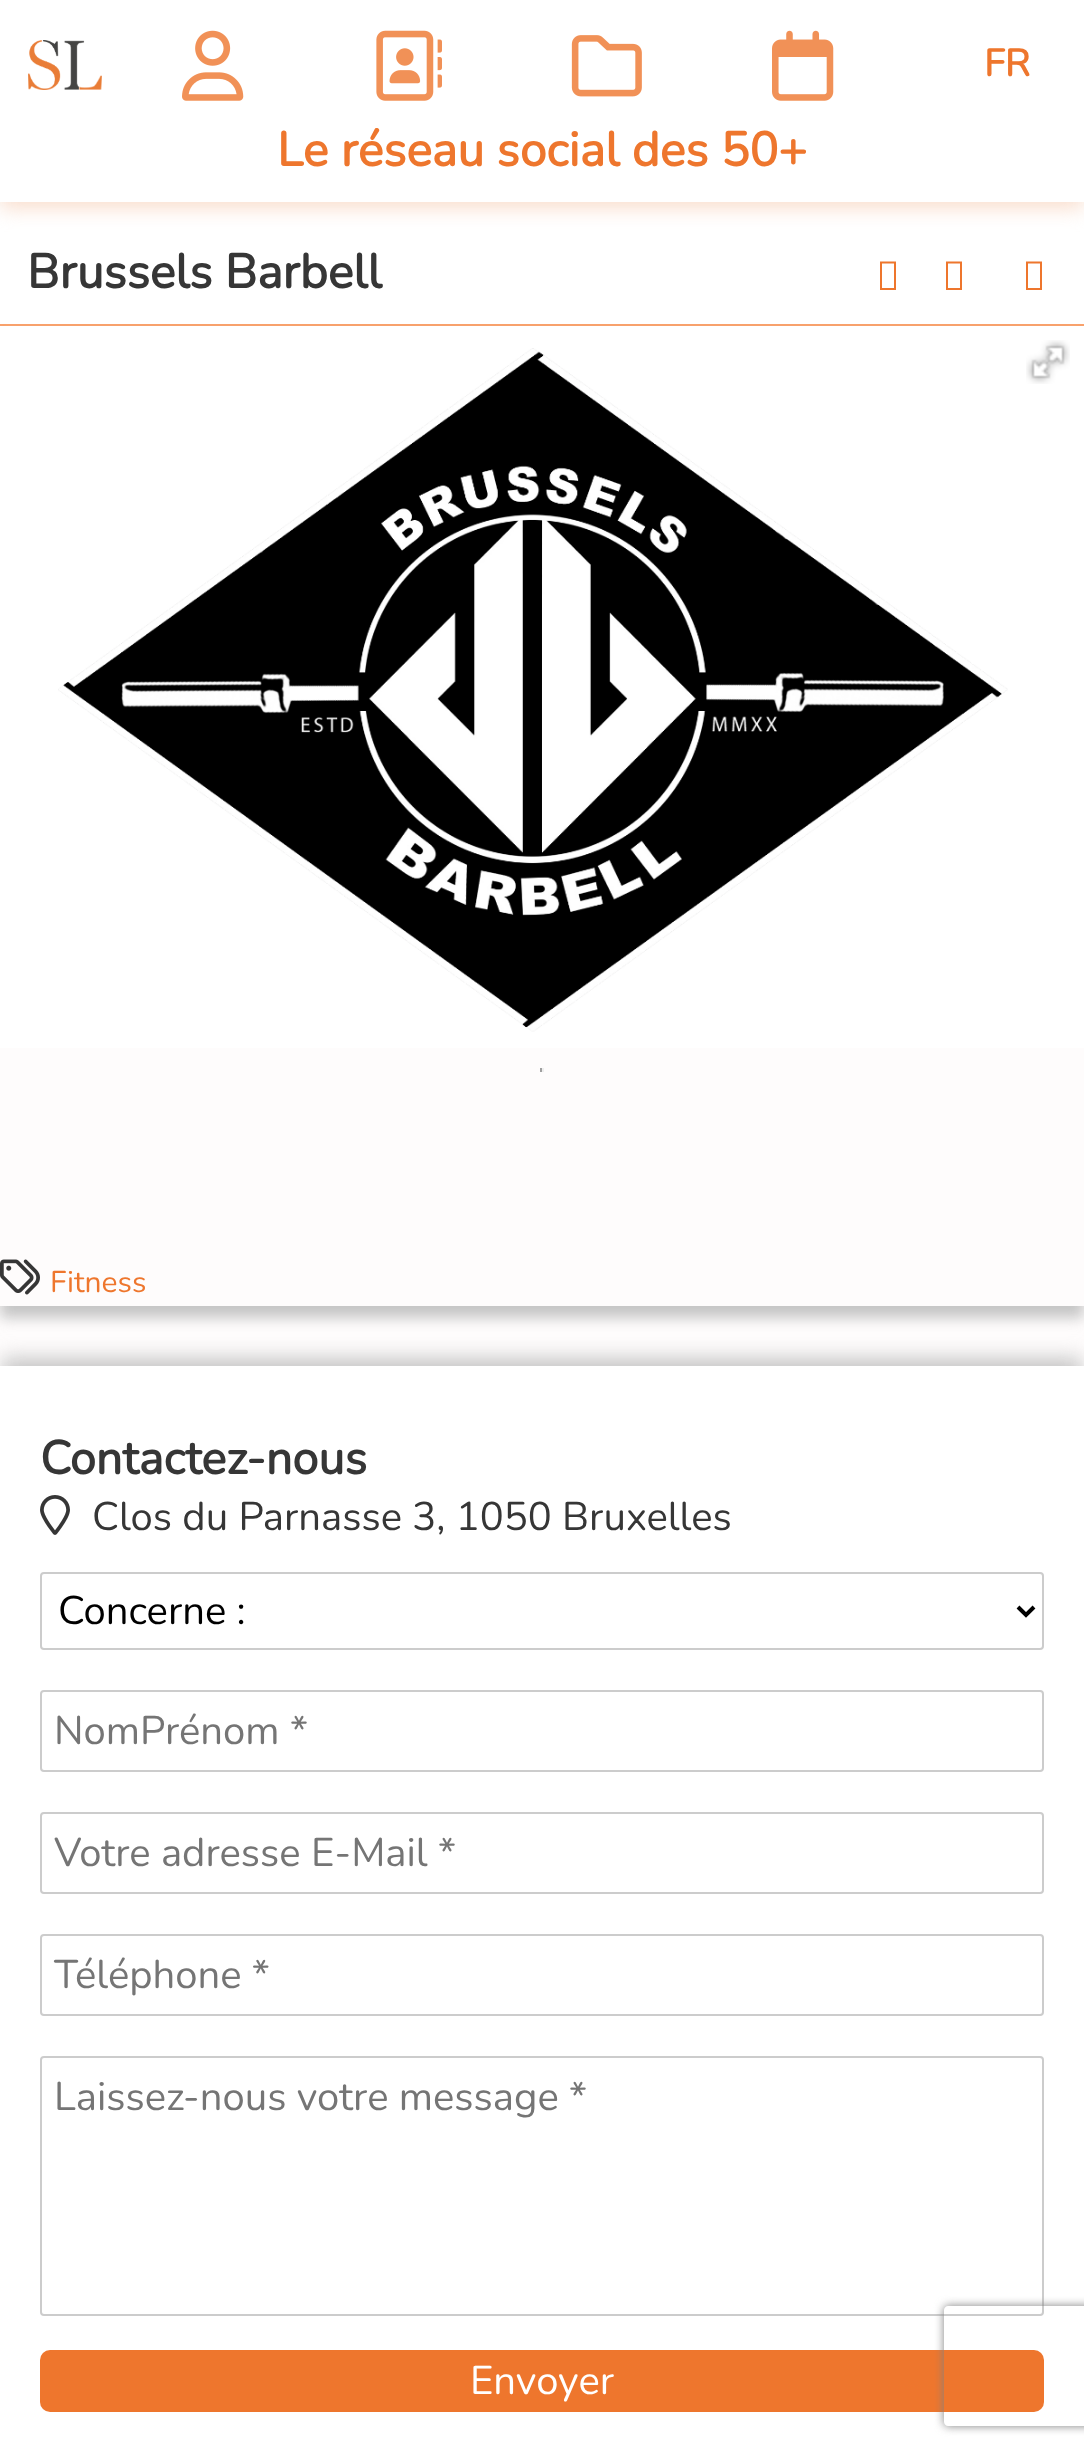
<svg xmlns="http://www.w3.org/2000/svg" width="1084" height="2454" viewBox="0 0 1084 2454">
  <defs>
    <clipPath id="clip1"><path d="M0 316H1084V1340H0ZM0 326H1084V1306H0Z" clip-rule="evenodd"/></clipPath>
    <clipPath id="clip2"><path d="M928 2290H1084V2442H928ZM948 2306H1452C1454 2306 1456 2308 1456 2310V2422C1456 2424 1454 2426 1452 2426H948C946 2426 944 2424 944 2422V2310C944 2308 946 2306 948 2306Z" clip-rule="evenodd"/></clipPath>
  </defs>
  <rect width="100%" height="100%" fill="#fefcfc"/>
  <path d="M0 202h1084v122H0z" fill="#fff"/>
  <path d="M0 6h1084v202H0z" fill="#f9ddcc" filter="blur(10px)"/>
  <path d="M0 0h1084v202H0z" fill="#fff"/>
  <image x="28" y="40" width="74" height="50" href="img/1.png"/>
  <image x="182" y="30" width="62" height="71" href="img/2.png"/>
  <image x="376" y="30" width="66" height="71" href="img/3.png"/>
  <image x="571" y="35" width="71" height="62" href="img/4.png"/>
  <image x="772" y="30" width="62" height="71" href="img/5.png"/>
  <path d="M0 324h1084v2H0z" fill="#f9a16b"/>
  <path d="M880 290V261.5H896V290ZM882 288H894V263.5H882Z" fill="#ee762d"/>
  <path d="M946 290V261.5H962V290ZM948 288H960V263.5H948Z" fill="#ee762d"/>
  <path d="M1026 290V261.5H1042V290ZM1028 288H1040V263.5H1028Z" fill="#ee762d"/>
  <g clip-path="url(#clip1)">
    <path d="M0 338h1084v980H0z" fill="#c5c5c5" filter="blur(7px)"/>
  </g>
  <path d="M0 326h1084v722H0z" fill="#fff"/>
  <image x="58" y="348" width="950" height="684" href="img/6.png"/>
  <image x="1026" y="340" width="44" height="44" href="img/7.png"/>
  <path d="M542 1068h2v4H542z" fill="#eee"/>
  <path d="M540 1070h4v2H540z" fill="#eee"/>
  <path d="M540 1068h2v4H540z" fill="#9f9f9f"/>
  <image x="0" y="1259" width="40" height="36" href="img/8.png"/>
  <path d="M2 1358h1080v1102H2z" fill="#c5c5c5" filter="blur(10px)"/>
  <path d="M0 1366h1084v1088H0z" fill="#fff"/>
  <image x="40" y="1495" width="30" height="40" href="img/9.png"/>
  <rect x="41" y="1573" width="1002" height="76" rx="3" fill="none" stroke="#ccc" stroke-width="2"/>
  <path d="M1018 1607L1026 1615L1034 1607" fill="none" stroke="#000" stroke-width="4"/>
  <rect x="41" y="1691" width="1002" height="80" rx="3" fill="none" stroke="#ccc" stroke-width="2"/>
  <rect x="41" y="1813" width="1002" height="80" rx="3" fill="none" stroke="#ccc" stroke-width="2"/>
  <rect x="41" y="1935" width="1002" height="80" rx="3" fill="none" stroke="#ccc" stroke-width="2"/>
  <rect x="41" y="2057" width="1002" height="258" rx="3" fill="none" stroke="#ccc" stroke-width="2"/>
  <rect x="40" y="2350" width="1004" height="62" rx="10" fill="#ee762d"/>
  <g clip-path="url(#clip2)">
    <rect x="944" y="2306" width="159" height="120" rx="4" fill="#808080" filter="blur(5px)"/>
  </g>
  <text x="984" y="76" font-family="Nunito" font-size="38" font-weight="bold" fill="#ee762d">FR</text>
  <text x="277" y="166" font-family="Nunito" font-size="48" font-weight="bold" fill="#ee762d">Le réseau social des 50+</text>
  <text x="27" y="288" font-family="Nunito" font-size="48" font-weight="bold" fill="#363636">Brussels Barbell</text>
  <text x="50" y="1292" font-family="Nunito" font-size="30" fill="#ee762d">Fitness</text>
  <text x="40" y="1474" font-family="Nunito" font-size="46.75" font-weight="bold" fill="#363636">Contactez-nous</text>
  <text x="92" y="1530" font-family="Nunito" font-size="40" fill="#363636">Clos du Parnasse 3, 1050 Bruxelles</text>
  <text x="58" y="1624" font-family="Nunito" font-size="40" fill="#000">Concerne :</text>
  <g font-family="Nunito" font-size="40" fill="#757575">
    <text x="54" y="1744">NomPrénom *</text>
    <text x="54" y="1866">Votre adresse E-Mail *</text>
    <text x="54" y="1988">Téléphone *</text>
    <text x="54" y="2110">Laissez-nous votre message *</text>
  </g>
  <text x="470" y="2394" font-family="Nunito" font-size="40" fill="#fff">Envoyer</text>
</svg>
